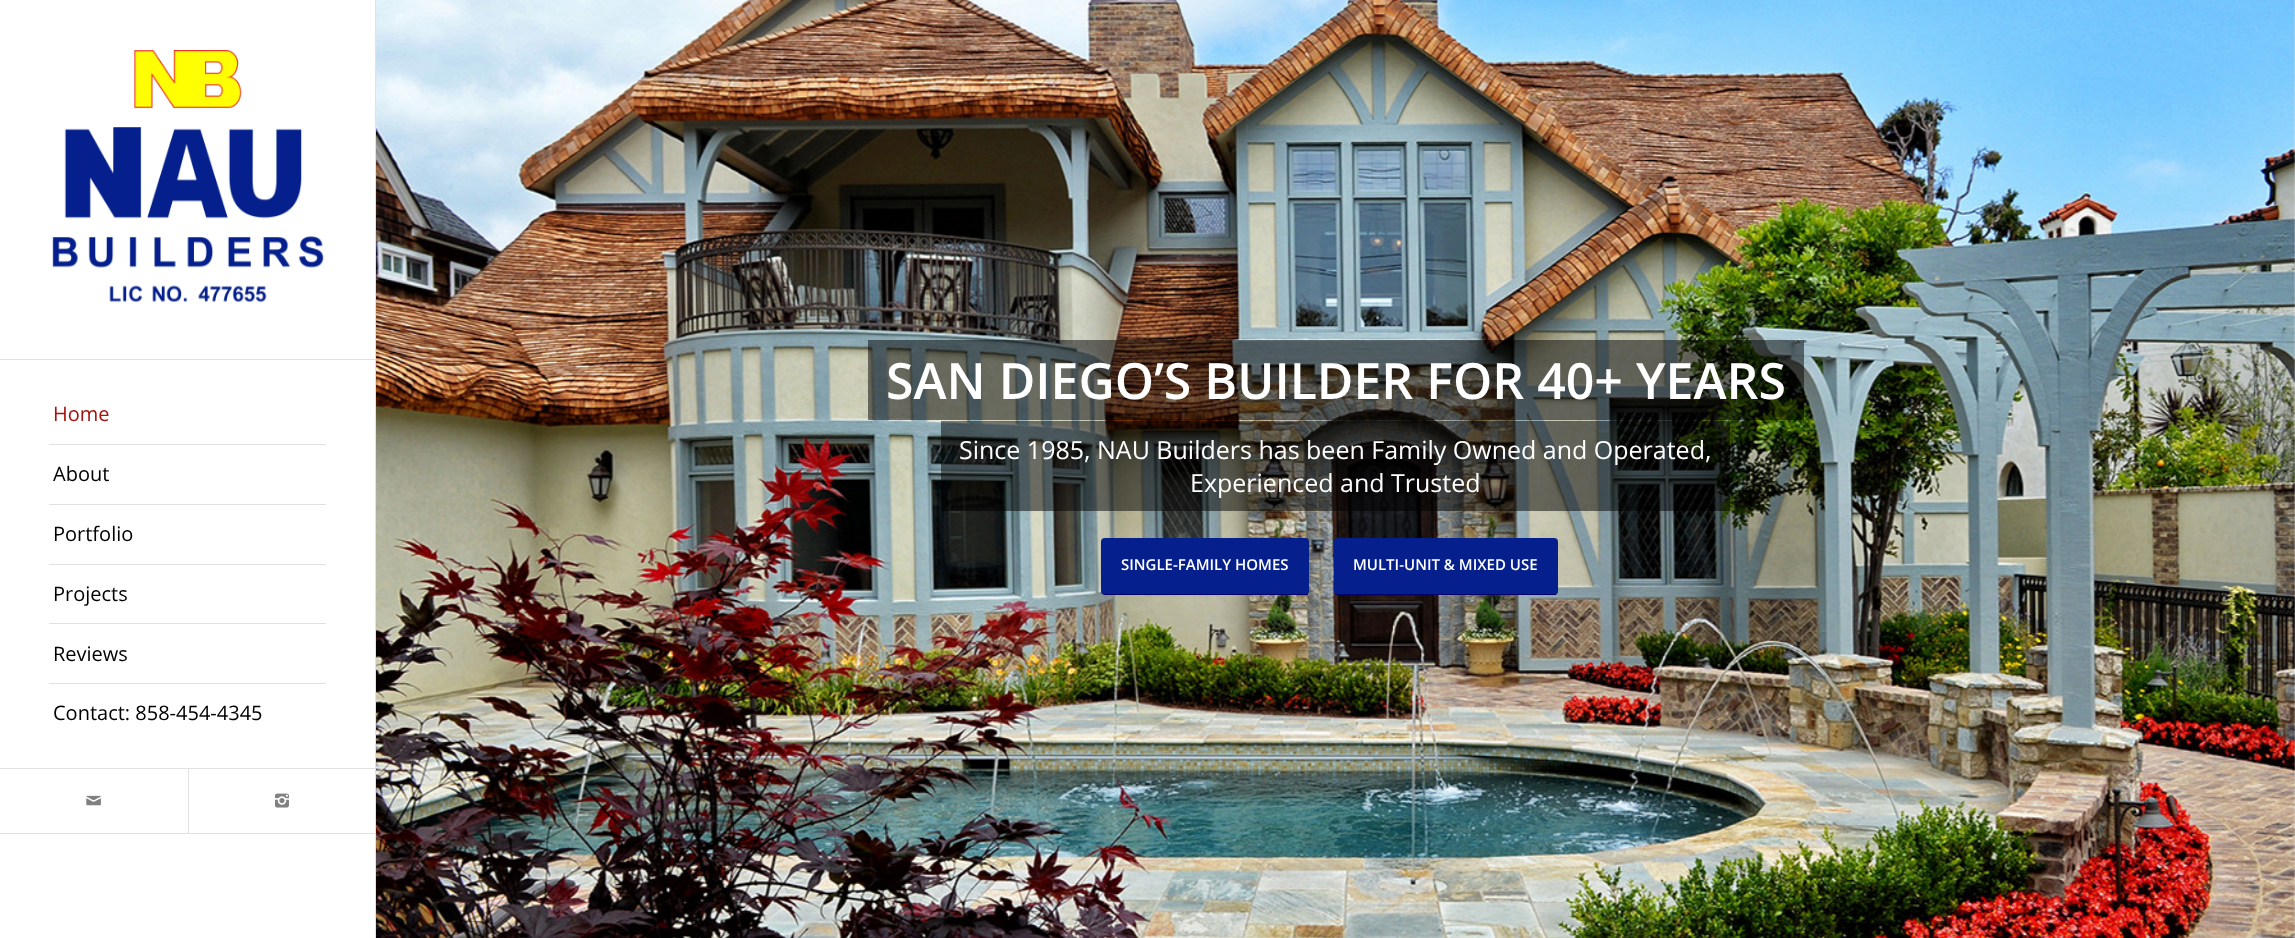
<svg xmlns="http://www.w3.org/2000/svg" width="2295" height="938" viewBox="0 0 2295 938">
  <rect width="100%" height="100%" fill="#fff"/>
  <path d="M0 833h375v1H0z" fill="#e1e1e1"/>
  <path d="M0 359h375v1H0z" fill="#e1e1e1"/>
  <image x="52" y="50" width="272" height="253" href="img/1.png"/>
  <path d="M49 444h277v1H49z" fill="#e1e1e1"/>
  <path d="M49 504h277v1H49z" fill="#e1e1e1"/>
  <path d="M49 564h277v1H49z" fill="#e1e1e1"/>
  <path d="M49 623h277v1H49z" fill="#e1e1e1"/>
  <path d="M49 683h277v1H49z" fill="#e1e1e1"/>
  <path d="M0 768h375v1H0z" fill="#e1e1e1"/>
  <image x="86" y="795" width="15" height="11" href="img/2.png"/>
  <path d="M188 769h1v64H188z" fill="#e1e1e1"/>
  <image x="275" y="793" width="14" height="15" href="img/3.png"/>
  <path d="M375 0h1v938H375z" fill="#e1e1e1"/>
  <image x="376" y="0" width="1919" height="938" href="img/4.png"/>
  <path d="M868 340h936v80H868z" fill="#00000080"/>
  <path d="M941 421h789v90H941z" fill="#00000080"/>
  <rect x="1101" y="538" width="208" height="57" rx="4" fill="#05208c"/>
  <path d="M1104 594h204v1H1104z" fill="#03006a"/>
  <rect x="1334" y="538" width="224" height="57" rx="4" fill="#05208c"/>
  <path d="M1336 594h220v1H1336z" fill="#03006a"/>
  <text x="53" y="421" font-family="Open Sans" font-size="20" fill="#a81010">Home</text>
  <g font-family="Open Sans" font-size="20" fill="#000">
    <text x="53" y="481">About</text>
    <text x="53" y="541">Portfolio</text>
    <text x="53" y="601">Projects</text>
    <text x="53" y="661">Reviews</text>
    <text x="53" y="720">Contact: 858-454-4345</text>
  </g>
  <text x="886" y="399" font-family="Open Sans" font-size="50" font-weight="600" fill="#fff">SAN DIEGO’S BUILDER FOR 40+ YEARS</text>
  <g font-family="Open Sans" font-size="25" fill="#fff">
    <text x="959" y="459">Since 1985, NAU Builders has been Family Owned and Operated,</text>
    <text x="1190" y="492">Experienced and Trusted</text>
  </g>
  <g font-family="Open Sans" font-size="15" font-weight="600" fill="#fff">
    <text x="1121" y="570">SINGLE-FAMILY HOMES</text>
    <text x="1353" y="570">MULTI-UNIT &amp; MIXED USE</text>
  </g>
</svg>
